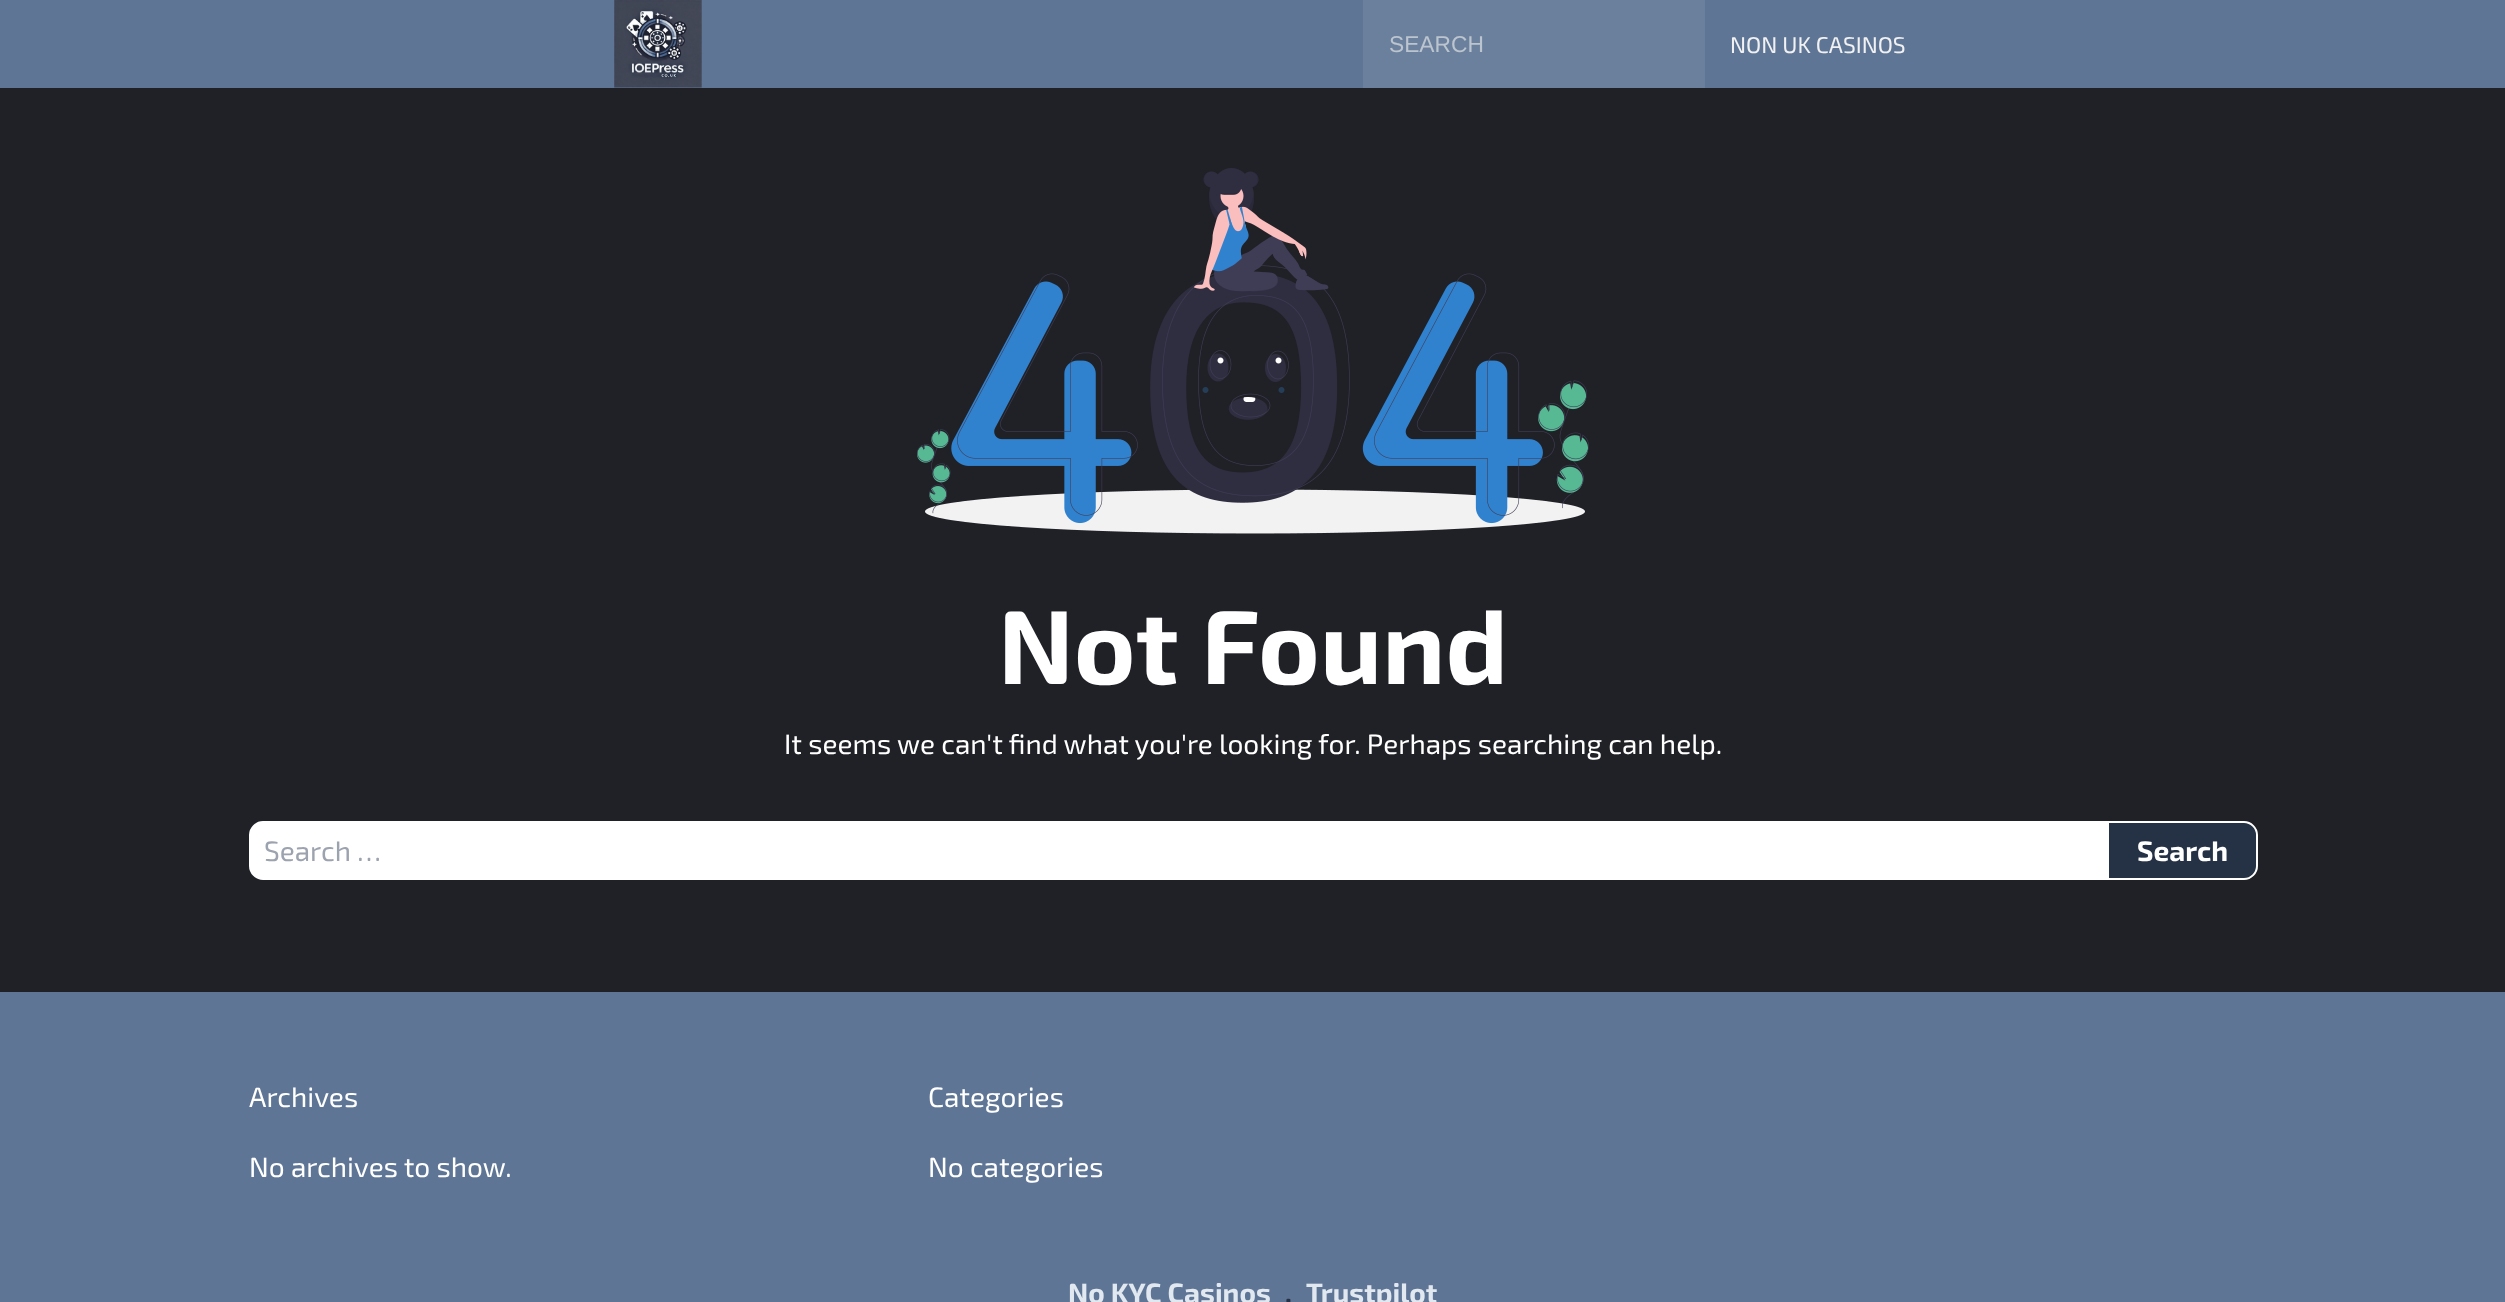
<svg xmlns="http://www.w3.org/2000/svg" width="2505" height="1302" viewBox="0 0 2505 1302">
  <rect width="100%" height="100%" fill="#202126"/>
  <path d="M0 0h2505v88H0z" fill="#5e7595"/>
  <image x="614" y="0" width="88" height="88" href="img/1.png"/>
  <path d="M1363 0h342v88H1363z" fill="#6b809c"/>
  <image x="917" y="168" width="672" height="366" href="img/2.png"/>
  <path d="M263 822H2106V879H263C256 879 250 873 250 866V835C250 828 256 822 263 822Z" fill="#fff" stroke="#fff" stroke-width="2"/>
  <path d="M2108 822H2244C2251 822 2257 828 2257 835V866C2257 873 2251 879 2244 879H2108Z" fill="#253144" stroke="#fff" stroke-width="2"/>
  <path d="M0 992h2505v310H0z" fill="#5e7595"/>
  <text x="1389" y="52" font-family="Liberation Sans" font-size="22.75" fill="#bbc4cf">SEARCH</text>
  <text x="1730" y="53" font-family="'Exo 2'" font-size="22.75" fill="#f1f1f1">NON UK CASINOS</text>
  <text x="998" y="684" font-family="'Exo 2'" font-size="105" font-weight="bold" fill="#fff">Not Found</text>
  <text x="784" y="754" font-family="'Exo 2'" font-size="28" fill="#fff">It seems we can't find what you're looking for. Perhaps searching can help.</text>
  <text x="264" y="861" font-family="'Exo 2'" font-size="28" fill="#9ca3af">Search …</text>
  <text x="2137" y="861" font-family="'Exo 2'" font-size="28" font-weight="bold" fill="#fff">Search</text>
  <g font-family="'Exo 2'" font-size="28" fill="#fff">
    <text x="249" y="1107">Archives</text>
    <text x="249" y="1177">No archives to show.</text>
    <text x="928" y="1107">Categories</text>
    <text x="928" y="1177">No categories</text>
  </g>
  <text x="1068" y="1303" font-family="'Exo 2'" font-size="28" font-weight="bold" fill="#e2e8f0">No KYC Casinos</text>
  <text x="1285" y="1303" font-family="'Exo 2'" font-size="28" font-weight="bold" fill="#253144">.</text>
  <text x="1306" y="1303" font-family="'Exo 2'" font-size="28" font-weight="bold" fill="#e2e8f0">Trustpilot</text>
</svg>
